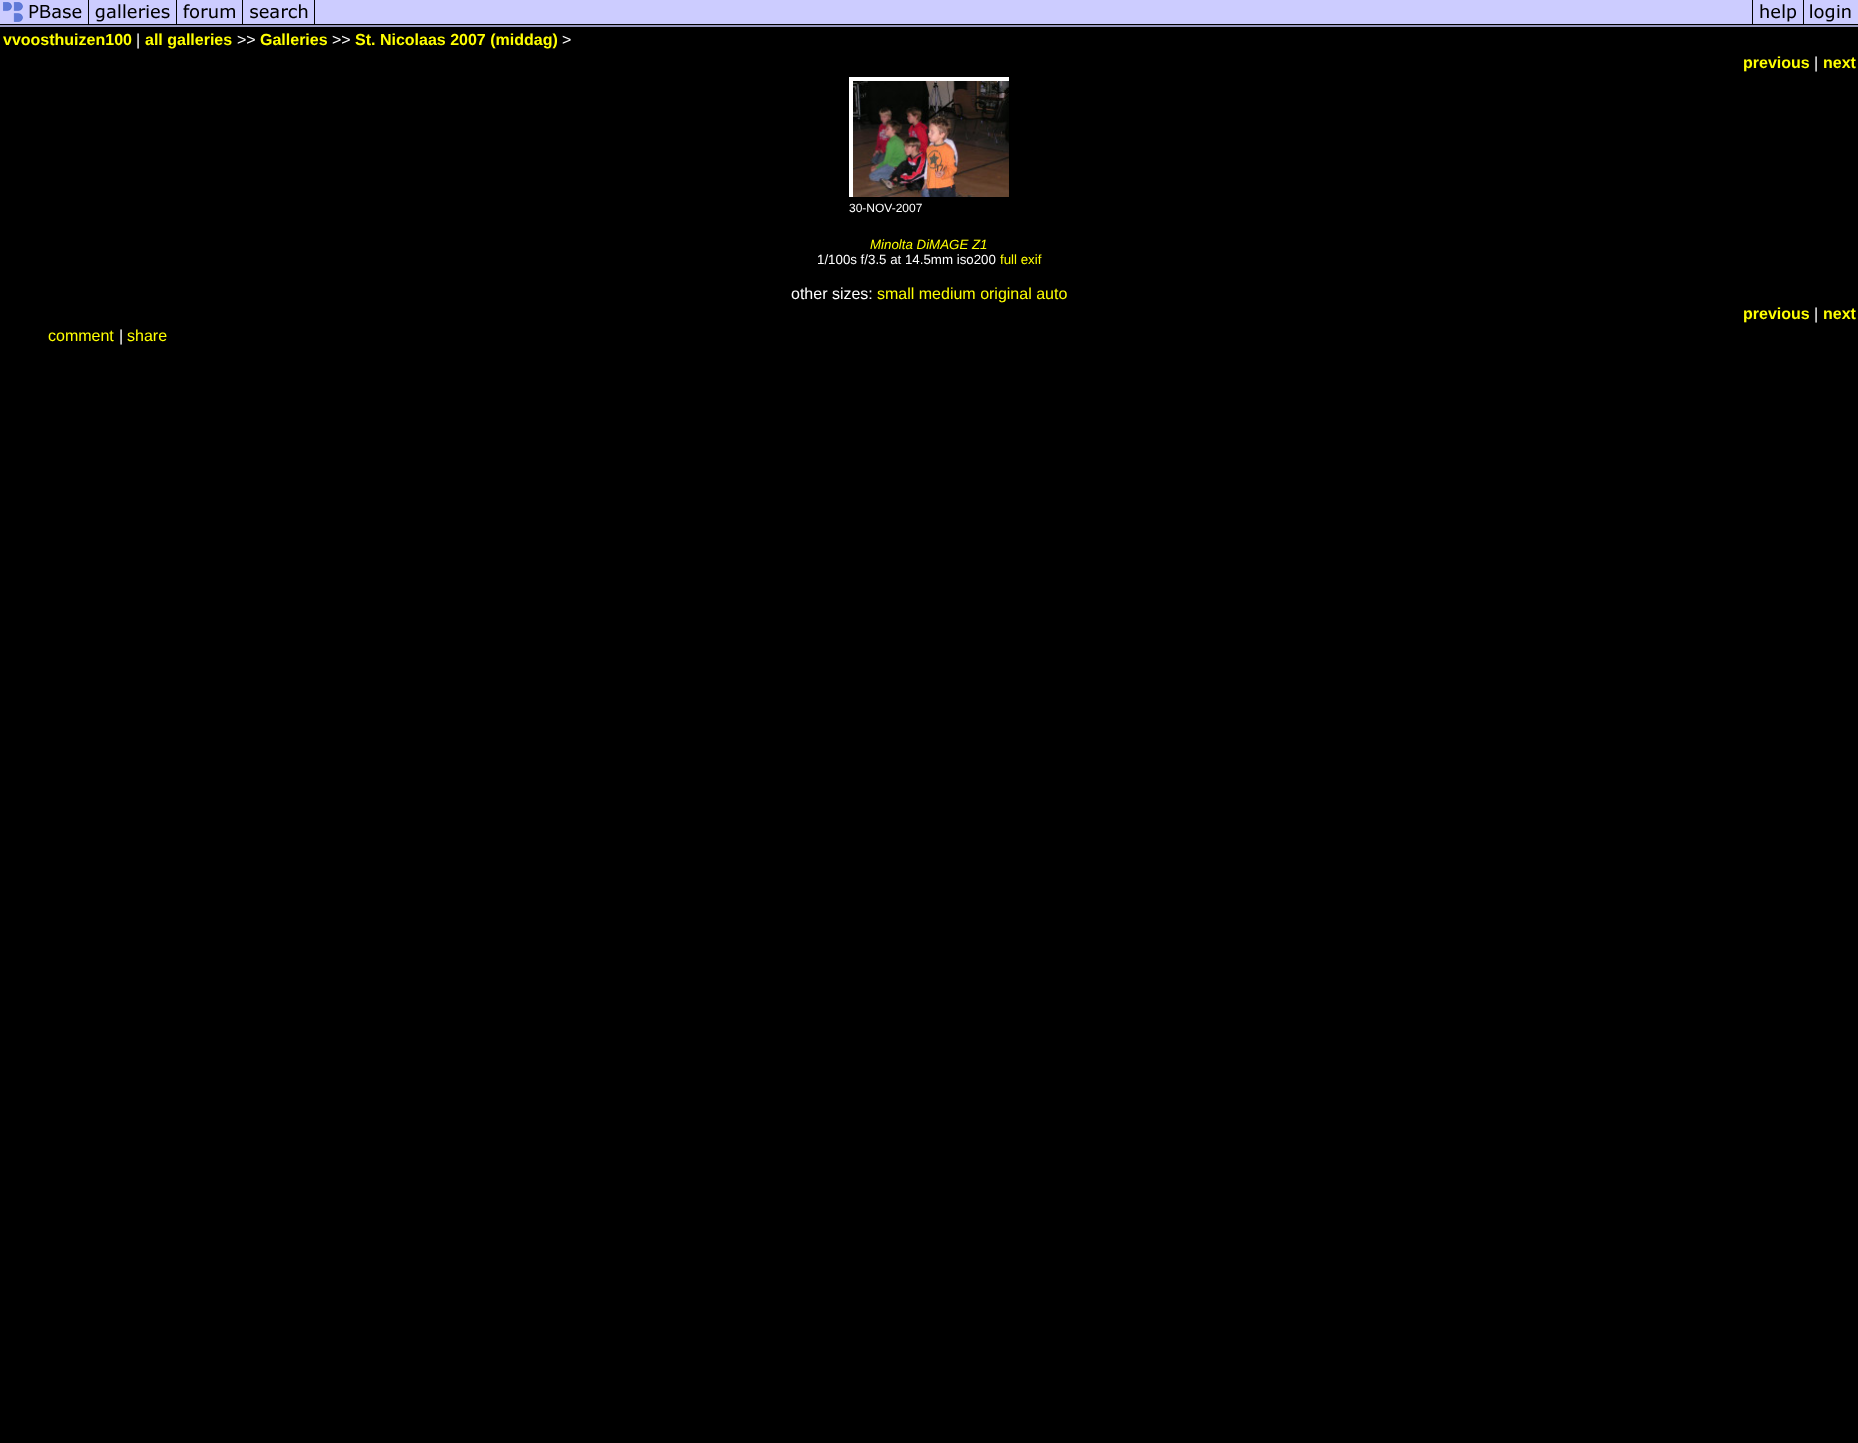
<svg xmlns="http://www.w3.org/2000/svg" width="1858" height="1443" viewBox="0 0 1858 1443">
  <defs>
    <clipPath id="clip1"><path d="M849 77h160v120H849z"/></clipPath>
  </defs>
  <rect width="100%" height="100%" fill="#000"/>
  <image x="0" y="0" width="89" height="27" href="img/1.png"/>
  <image x="89" y="0" width="88" height="27" href="img/2.png"/>
  <image x="177" y="0" width="66" height="27" href="img/3.png"/>
  <image x="243" y="0" width="72" height="27" href="img/4.png"/>
  <image x="315" y="0" width="1437" height="27" href="img/5.png"/>
  <image x="1752" y="0" width="52" height="27" href="img/6.png"/>
  <image x="1804" y="0" width="54" height="27" href="img/7.png"/>
  <g clip-path="url(#clip1)">
    <path d="M851 79h162v123H851z" fill="none" stroke="#fff" stroke-width="4"/>
  </g>
  <image x="853" y="81" width="156" height="116" href="img/8.png"/>
  <text x="3" y="45" font-family="Liberation Sans" font-size="16" font-weight="bold" fill="#ff0">vvoosthuizen100</text>
  <text x="136" y="45" font-family="Liberation Sans" font-size="16" fill="#fff">|</text>
  <text x="145" y="45" font-family="Liberation Sans" font-size="16" font-weight="bold" fill="#ff0">all galleries</text>
  <text x="237" y="45" font-family="Liberation Sans" font-size="16" fill="#fff">&gt;&gt;</text>
  <text x="260" y="45" font-family="Liberation Sans" font-size="16" font-weight="bold" fill="#ff0">Galleries</text>
  <text x="332" y="45" font-family="Liberation Sans" font-size="16" fill="#fff">&gt;&gt;</text>
  <text x="355" y="45" font-family="Liberation Sans" font-size="16" font-weight="bold" fill="#ff0">St. Nicolaas 2007 (middag)</text>
  <text x="562" y="45" font-family="Liberation Sans" font-size="16" fill="#fff">&gt;</text>
  <text x="1743" y="68" font-family="Liberation Sans" font-size="16" font-weight="bold" fill="#ff0">previous</text>
  <text x="1814" y="68" font-family="Liberation Sans" font-size="16" fill="#fff">|</text>
  <text x="1823" y="68" font-family="Liberation Sans" font-size="16" font-weight="bold" fill="#ff0">next</text>
  <text x="849" y="212" font-family="Liberation Sans" font-size="12" fill="#fff">30-NOV-2007</text>
  <text x="870" y="249" font-family="Liberation Sans" font-size="13.3" font-style="italic" fill="#ff0">Minolta DiMAGE Z1</text>
  <text x="817" y="264" font-family="Liberation Sans" font-size="13.3" fill="#fff">1/100s f/3.5 at 14.5mm iso200</text>
  <text x="1000" y="264" font-family="Liberation Sans" font-size="13.3" fill="#ff0">full exif</text>
  <text x="791" y="299" font-family="Liberation Sans" font-size="16" fill="#fff">other sizes:</text>
  <text x="877" y="299" font-family="Liberation Sans" font-size="16" fill="#ff0">small medium original auto</text>
  <text x="1743" y="319" font-family="Liberation Sans" font-size="16" font-weight="bold" fill="#ff0">previous</text>
  <text x="1814" y="319" font-family="Liberation Sans" font-size="16" fill="#fff">|</text>
  <text x="1823" y="319" font-family="Liberation Sans" font-size="16" font-weight="bold" fill="#ff0">next</text>
  <text x="48" y="341" font-family="Liberation Sans" font-size="16" fill="#ff0">comment</text>
  <text x="119" y="341" font-family="Liberation Sans" font-size="16" fill="#fff">|</text>
  <text x="127" y="341" font-family="Liberation Sans" font-size="16" fill="#ff0">share</text>
</svg>
